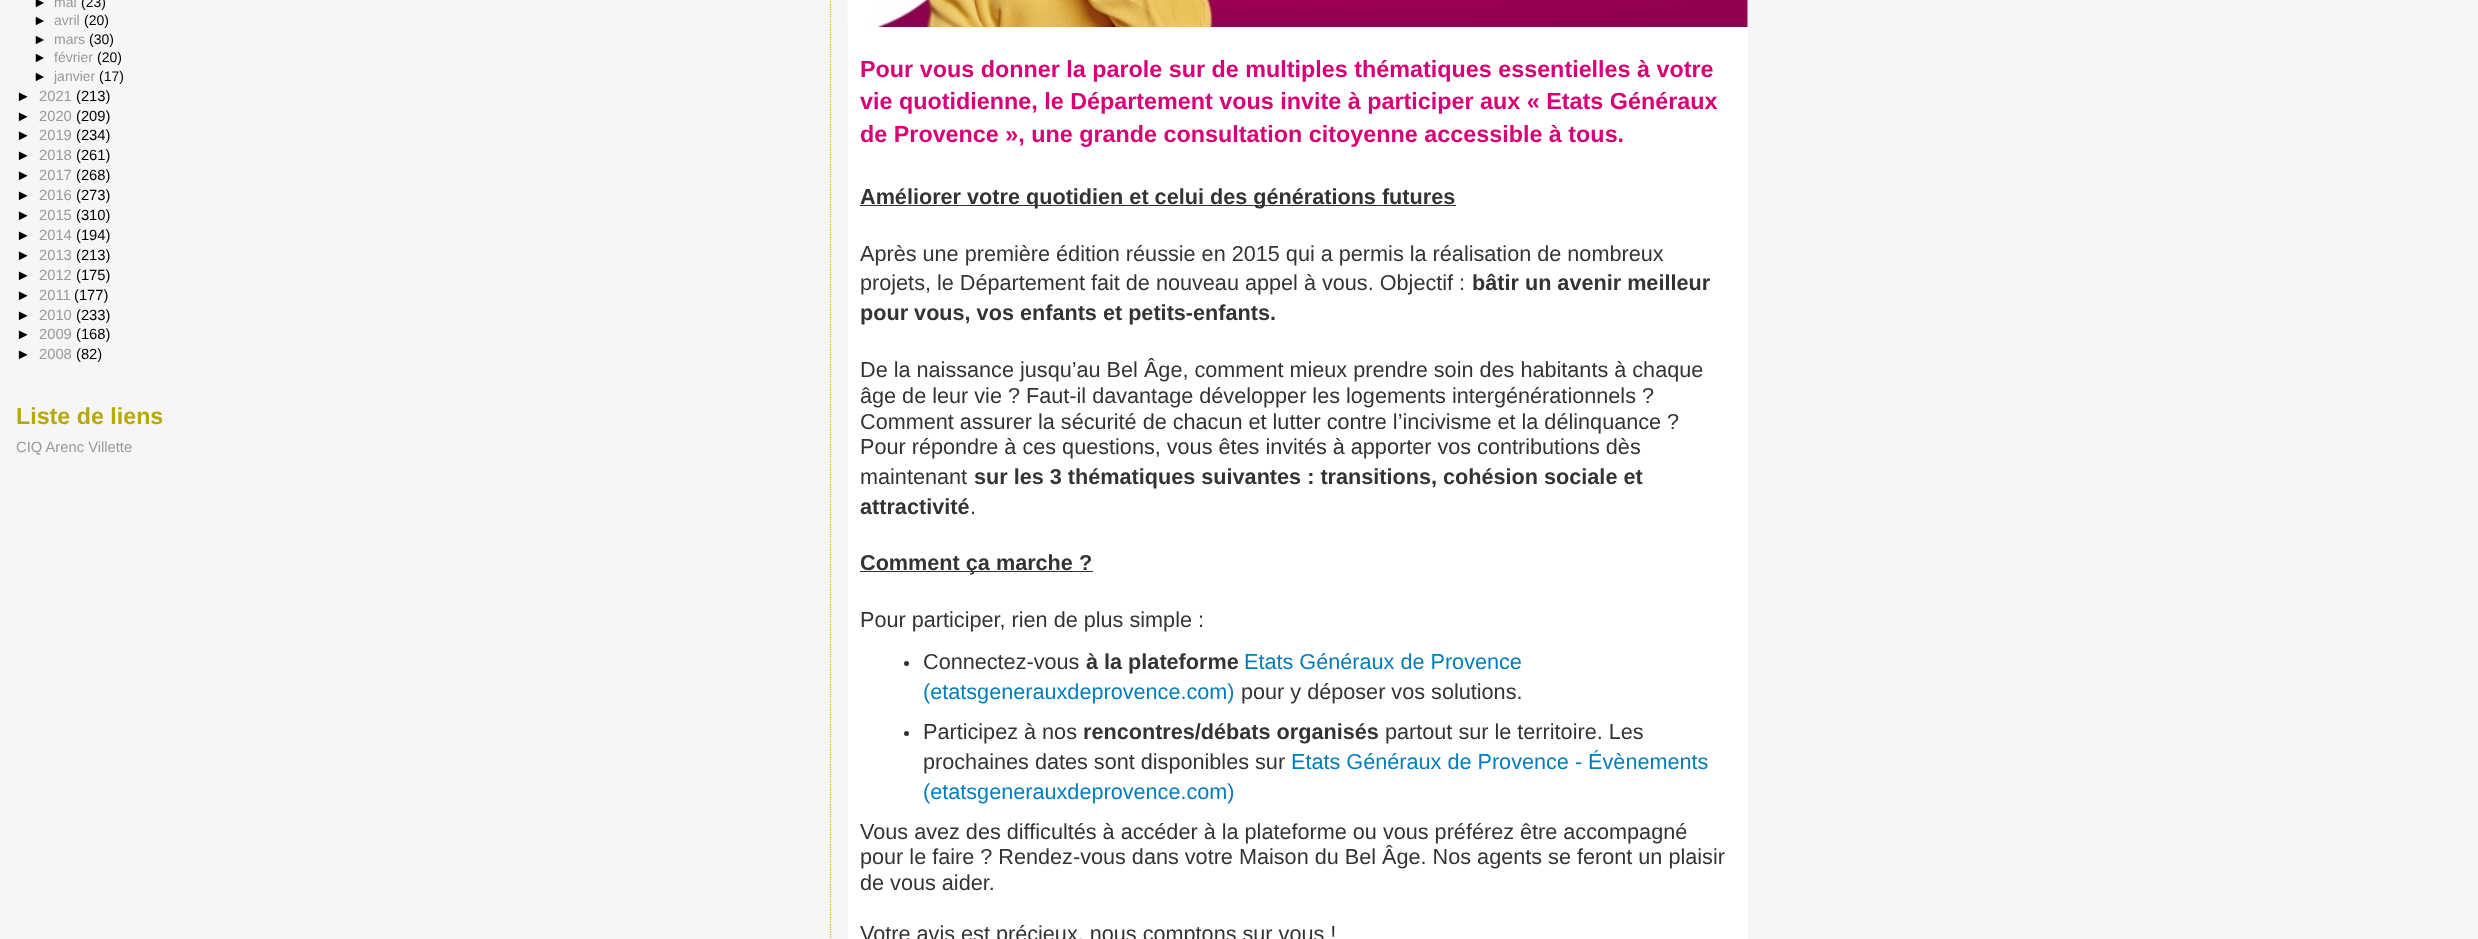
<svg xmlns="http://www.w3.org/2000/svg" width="2478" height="939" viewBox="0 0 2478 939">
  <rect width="100%" height="100%" fill="#f6f6f6"/>
  <path d="M830.5-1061V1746" fill="none" stroke="#e0ad12" stroke-width="1.2" stroke-dasharray="1.25 1.25"/>
  <path d="M848 0h900v939H848z" fill="#fff"/>
  <image x="847" y="0" width="901" height="27" href="img/1.png"/>
  <path d="M860 205h596v1H860z" fill="#333"/>
  <path d="M860 571h233v1H860z" fill="#333"/>
  <circle cx="906.5" cy="663.5" r="2.5" fill="#333"/>
  <circle cx="906.5" cy="733.5" r="2.5" fill="#333"/>
  <text x="33" y="7" font-family="Liberation Sans" font-size="14" fill="#000">►</text>
  <text x="54" y="7" font-family="Liberation Sans" font-size="14" fill="#999">mai</text>
  <g font-family="Liberation Sans" font-size="14" fill="#000">
    <text x="81" y="7">(23)</text>
    <text x="33" y="25">►</text>
  </g>
  <text x="54" y="25" font-family="Liberation Sans" font-size="14" fill="#999">avril</text>
  <g font-family="Liberation Sans" font-size="14" fill="#000">
    <text x="84" y="25">(20)</text>
    <text x="33" y="44">►</text>
  </g>
  <text x="54" y="44" font-family="Liberation Sans" font-size="14" fill="#999">mars</text>
  <g font-family="Liberation Sans" font-size="14" fill="#000">
    <text x="89" y="44">(30)</text>
    <text x="33" y="62">►</text>
  </g>
  <text x="54" y="62" font-family="Liberation Sans" font-size="14" fill="#999">février</text>
  <g font-family="Liberation Sans" font-size="14" fill="#000">
    <text x="97" y="62">(20)</text>
    <text x="33" y="81">►</text>
  </g>
  <text x="54" y="81" font-family="Liberation Sans" font-size="14" fill="#999">janvier</text>
  <text x="99" y="81" font-family="Liberation Sans" font-size="14" fill="#000">(17)</text>
  <text x="16" y="101" font-family="Liberation Sans" font-size="14.75" fill="#000">►</text>
  <text x="39" y="101" font-family="Liberation Sans" font-size="14.75" fill="#999">2021</text>
  <g font-family="Liberation Sans" font-size="14.75" fill="#000">
    <text x="76" y="101">(213)</text>
    <text x="16" y="121">►</text>
  </g>
  <text x="39" y="121" font-family="Liberation Sans" font-size="14.75" fill="#999">2020</text>
  <g font-family="Liberation Sans" font-size="14.75" fill="#000">
    <text x="76" y="121">(209)</text>
    <text x="16" y="140">►</text>
  </g>
  <text x="39" y="140" font-family="Liberation Sans" font-size="14.75" fill="#999">2019</text>
  <g font-family="Liberation Sans" font-size="14.75" fill="#000">
    <text x="76" y="140">(234)</text>
    <text x="16" y="160">►</text>
  </g>
  <text x="39" y="160" font-family="Liberation Sans" font-size="14.75" fill="#999">2018</text>
  <g font-family="Liberation Sans" font-size="14.75" fill="#000">
    <text x="76" y="160">(261)</text>
    <text x="16" y="180">►</text>
  </g>
  <text x="39" y="180" font-family="Liberation Sans" font-size="14.75" fill="#999">2017</text>
  <g font-family="Liberation Sans" font-size="14.75" fill="#000">
    <text x="76" y="180">(268)</text>
    <text x="16" y="200">►</text>
  </g>
  <text x="39" y="200" font-family="Liberation Sans" font-size="14.75" fill="#999">2016</text>
  <g font-family="Liberation Sans" font-size="14.75" fill="#000">
    <text x="76" y="200">(273)</text>
    <text x="16" y="220">►</text>
  </g>
  <text x="39" y="220" font-family="Liberation Sans" font-size="14.75" fill="#999">2015</text>
  <g font-family="Liberation Sans" font-size="14.75" fill="#000">
    <text x="76" y="220">(310)</text>
    <text x="16" y="240">►</text>
  </g>
  <text x="39" y="240" font-family="Liberation Sans" font-size="14.75" fill="#999">2014</text>
  <g font-family="Liberation Sans" font-size="14.75" fill="#000">
    <text x="76" y="240">(194)</text>
    <text x="16" y="260">►</text>
  </g>
  <text x="39" y="260" font-family="Liberation Sans" font-size="14.75" fill="#999">2013</text>
  <g font-family="Liberation Sans" font-size="14.75" fill="#000">
    <text x="76" y="260">(213)</text>
    <text x="16" y="280">►</text>
  </g>
  <text x="39" y="280" font-family="Liberation Sans" font-size="14.75" fill="#999">2012</text>
  <g font-family="Liberation Sans" font-size="14.75" fill="#000">
    <text x="76" y="280">(175)</text>
    <text x="16" y="300">►</text>
  </g>
  <text x="39" y="300" font-family="Liberation Sans" font-size="14.75" fill="#999">2011</text>
  <g font-family="Liberation Sans" font-size="14.75" fill="#000">
    <text x="74" y="300">(177)</text>
    <text x="16" y="320">►</text>
  </g>
  <text x="39" y="320" font-family="Liberation Sans" font-size="14.75" fill="#999">2010</text>
  <g font-family="Liberation Sans" font-size="14.75" fill="#000">
    <text x="76" y="320">(233)</text>
    <text x="16" y="339">►</text>
  </g>
  <text x="39" y="339" font-family="Liberation Sans" font-size="14.75" fill="#999">2009</text>
  <g font-family="Liberation Sans" font-size="14.75" fill="#000">
    <text x="76" y="339">(168)</text>
    <text x="16" y="359">►</text>
  </g>
  <text x="39" y="359" font-family="Liberation Sans" font-size="14.75" fill="#999">2008</text>
  <text x="76" y="359" font-family="Liberation Sans" font-size="14.75" fill="#000">(82)</text>
  <text x="16" y="424" font-family="Liberation Sans" font-size="23.25" font-weight="bold" fill="#b8a80d">Liste de liens</text>
  <text x="16" y="452" font-family="Liberation Sans" font-size="14.75" fill="#999">CIQ Arenc Villette</text>
  <g font-family="Liberation Sans" font-size="23.35" font-weight="bold" fill="#d90077">
    <text x="860" y="77">Pour vous donner la parole sur de multiples thématiques essentielles à votre</text>
    <text x="860" y="109">vie quotidienne, le Département vous invite à participer aux « Etats Généraux</text>
    <text x="860" y="142">de Provence », une grande consultation citoyenne accessible à tous.</text>
  </g>
  <text x="860" y="204" font-family="Liberation Sans" font-size="21.65" font-weight="bold" fill="#333">Améliorer votre quotidien et celui des générations futures</text>
  <g font-family="Liberation Sans" font-size="21.65" fill="#333">
    <text x="860" y="261">Après une première édition réussie en 2015 qui a permis la réalisation de nombreux</text>
    <text x="860" y="290">projets, le Département fait de nouveau appel à vous. Objectif :</text>
  </g>
  <g font-family="Liberation Sans" font-size="21.65" font-weight="bold" fill="#333">
    <text x="1472" y="290">bâtir un avenir meilleur</text>
    <text x="860" y="320">pour vous, vos enfants et petits-enfants.</text>
  </g>
  <g font-family="Liberation Sans" font-size="21.65" fill="#333">
    <text x="860" y="377">De la naissance jusqu’au Bel Âge, comment mieux prendre soin des habitants à chaque</text>
    <text x="860" y="403">âge de leur vie ? Faut-il davantage développer les logements intergénérationnels ?</text>
    <text x="860" y="429">Comment assurer la sécurité de chacun et lutter contre l’incivisme et la délinquance ?</text>
    <text x="860" y="454">Pour répondre à ces questions, vous êtes invités à apporter vos contributions dès</text>
    <text x="860" y="484">maintenant</text>
  </g>
  <g font-family="Liberation Sans" font-size="21.65" font-weight="bold" fill="#333">
    <text x="974" y="484">sur les 3 thématiques suivantes : transitions, cohésion sociale et</text>
    <text x="860" y="514">attractivité</text>
  </g>
  <text x="970" y="514" font-family="Liberation Sans" font-size="21.65" fill="#333">.</text>
  <text x="860" y="570" font-family="Liberation Sans" font-size="21.65" font-weight="bold" fill="#333">Comment ça marche ?</text>
  <g font-family="Liberation Sans" font-size="21.65" fill="#333">
    <text x="860" y="627">Pour participer, rien de plus simple :</text>
    <text x="923" y="669">Connectez-vous</text>
  </g>
  <text x="1086" y="669" font-family="Liberation Sans" font-size="21.65" font-weight="bold" fill="#333">à la plateforme</text>
  <g font-family="Liberation Sans" font-size="21.65" fill="#007dbc">
    <text x="1244" y="669">Etats Généraux de Provence</text>
    <text x="923" y="699">(etatsgenerauxdeprovence.com)</text>
  </g>
  <g font-family="Liberation Sans" font-size="21.65" fill="#333">
    <text x="1241" y="699">pour y déposer vos solutions.</text>
    <text x="923" y="739">Participez à nos</text>
  </g>
  <text x="1083" y="739" font-family="Liberation Sans" font-size="21.65" font-weight="bold" fill="#333">rencontres/débats organisés</text>
  <g font-family="Liberation Sans" font-size="21.65" fill="#333">
    <text x="1385" y="739">partout sur le territoire. Les</text>
    <text x="923" y="769">prochaines dates sont disponibles sur</text>
  </g>
  <g font-family="Liberation Sans" font-size="21.65" fill="#007dbc">
    <text x="1291" y="769">Etats Généraux de Provence - Évènements</text>
    <text x="923" y="799">(etatsgenerauxdeprovence.com)</text>
  </g>
  <g font-family="Liberation Sans" font-size="21.65" fill="#333">
    <text x="860" y="839">Vous avez des difficultés à accéder à la plateforme ou vous préférez être accompagné</text>
    <text x="860" y="864">pour le faire ? Rendez-vous dans votre Maison du Bel Âge. Nos agents se feront un plaisir</text>
    <text x="860" y="890">de vous aider.</text>
    <text x="860" y="941">Votre avis est précieux, nous comptons sur vous !</text>
  </g>
</svg>
